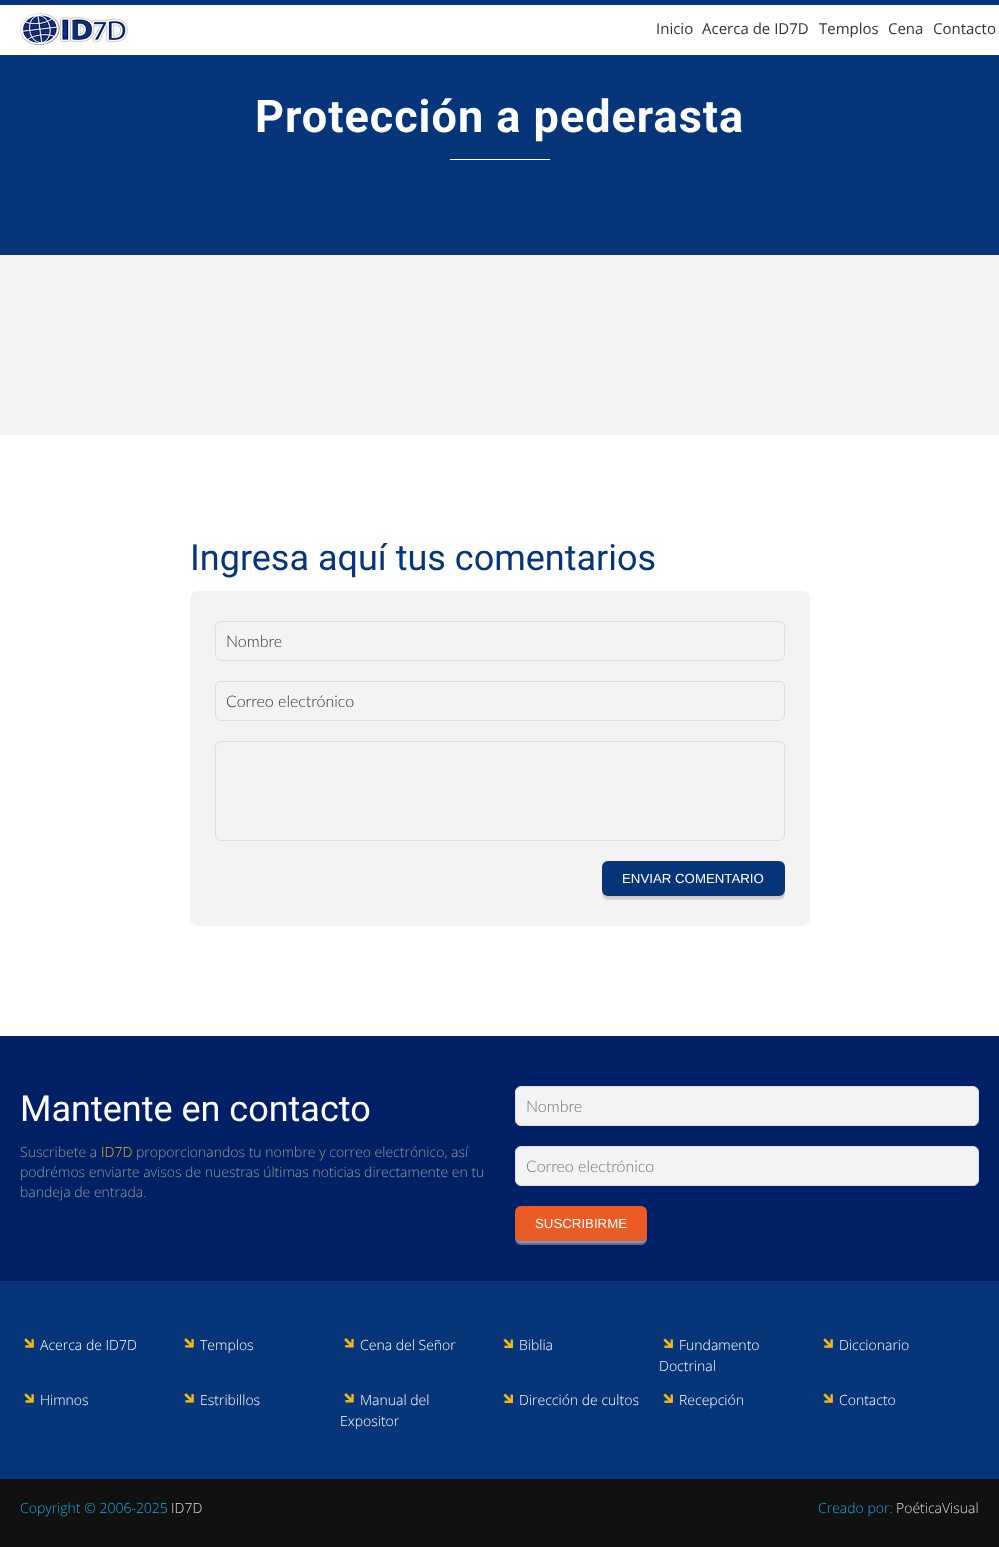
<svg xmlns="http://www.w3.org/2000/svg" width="999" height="1547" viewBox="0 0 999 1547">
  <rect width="100%" height="100%" fill="#111"/>
  <path d="M0 5h999v50H0z" fill="#fff"/>
  <path d="M0 0h999v5H0z" fill="#06357a"/>
  <image x="20" y="13" width="108" height="32" href="img/1.png"/>
  <path d="M0 55h999v200H0z" fill="#06357a"/>
  <path d="M450 159h100v1H450z" fill="#fff"/>
  <path d="M0 255h999v180H0z" fill="#f3f3f3"/>
  <path d="M0 435h999v601H0z" fill="#fff"/>
  <rect x="190" y="591" width="620" height="335" rx="8" fill="#f3f3f3"/>
  <rect x="215.5" y="621.5" width="569" height="39" rx="5.5" fill="none" stroke="#dedede"/>
  <rect x="215.5" y="681.5" width="569" height="39" rx="5.5" fill="none" stroke="#dedede"/>
  <rect x="215.5" y="741.5" width="569" height="99" rx="5.5" fill="none" stroke="#dedede"/>
  <path d="M602 890V894C602 897 605 900 608 900H779C782 900 785 897 785 894V890C785 893 782 896 779 896H608C605 896 602 893 602 890Z" fill="#d8d8d8"/>
  <path d="M602 890V892C602 895 605 898 608 898H779C782 898 785 895 785 892V890C785 893 782 896 779 896H608C605 896 602 893 602 890Z" fill="#bdbdbd80"/>
  <rect x="602" y="861" width="183" height="35" rx="6" fill="#06357a"/>
  <path d="M0 1036h999v245H0z" fill="#002066"/>
  <rect x="515.5" y="1086.5" width="463" height="39" rx="5.5" fill="#f3f3f3" stroke="#dedede"/>
  <rect x="515.5" y="1146.5" width="463" height="39" rx="5.5" fill="#f3f3f3" stroke="#dedede"/>
  <path d="M515 1235V1239C515 1242 518 1245 521 1245H641C644 1245 647 1242 647 1239V1235C647 1238 644 1241 641 1241H521C518 1241 515 1238 515 1235Z" fill="#5f6f92"/>
  <path d="M515 1235V1237C515 1240 518 1243 521 1243H641C644 1243 647 1240 647 1237V1235C647 1238 644 1241 641 1241H521C518 1241 515 1238 515 1235Z" fill="#bdbdbd80"/>
  <rect x="515" y="1206" width="132" height="35" rx="6" fill="#eb5b25"/>
  <path d="M0 1281h999v198H0z" fill="#06357a"/>
  <image x="24" y="1338" width="10" height="10" href="img/2.png"/>
  <image x="184" y="1338" width="10" height="10" href="img/3.png"/>
  <image x="344" y="1338" width="10" height="10" href="img/4.png"/>
  <image x="503" y="1338" width="10" height="11" href="img/5.png"/>
  <image x="663" y="1338" width="10" height="10" href="img/6.png"/>
  <image x="823" y="1338" width="10" height="10" href="img/7.png"/>
  <image x="24" y="1393" width="10" height="10" href="img/2.png"/>
  <image x="184" y="1393" width="10" height="10" href="img/3.png"/>
  <image x="344" y="1393" width="10" height="10" href="img/4.png"/>
  <image x="503" y="1393" width="10" height="11" href="img/5.png"/>
  <image x="663" y="1393" width="10" height="10" href="img/6.png"/>
  <image x="823" y="1393" width="10" height="10" href="img/7.png"/>
  <g font-family="Open Sans" font-size="15" fill="#333">
    <text x="656" y="34">Inicio</text>
    <text x="702" y="34">Acerca de ID7D</text>
    <text x="819" y="34">Templos</text>
    <text x="888" y="34">Cena</text>
    <text x="933" y="34">Contacto</text>
  </g>
  <text x="255" y="132" font-family="Roboto" font-size="45" font-weight="bold" letter-spacing="1" fill="#fff">Protección a pederasta</text>
  <text x="190" y="570" font-family="Roboto" font-size="36" fill="#06357a">Ingresa aquí tus comentarios</text>
  <g font-family="Lato" font-size="16" font-weight="300" fill="#333">
    <text x="226" y="647">Nombre</text>
    <text x="226" y="707">Correo electrónico</text>
  </g>
  <text x="622" y="883" font-family="Liberation Sans" font-size="13.25" fill="#fff">ENVIAR COMENTARIO</text>
  <text x="20" y="1121" font-family="Roboto" font-size="36" fill="#fff">Mantente en contacto</text>
  <text x="20" y="1157" font-family="Open Sans" font-size="14" font-weight="300" fill="#999">Suscribete a</text>
  <text x="101" y="1157" font-family="Open Sans" font-size="14" font-weight="300" fill="#f4b519">ID7D</text>
  <g font-family="Open Sans" font-size="14" font-weight="300" fill="#999">
    <text x="136" y="1157">proporcionandos tu nombre y correo electrónico, así</text>
    <text x="20" y="1177">podrémos enviarte avisos de nuestras últimas noticias directamente en tu</text>
    <text x="20" y="1197">bandeja de entrada.</text>
  </g>
  <g font-family="Lato" font-size="16" font-weight="300" fill="#757575">
    <text x="526" y="1112">Nombre</text>
    <text x="526" y="1172">Correo electrónico</text>
  </g>
  <text x="535" y="1228" font-family="Liberation Sans" font-size="13.25" fill="#fff">SUSCRIBIRME</text>
  <g font-family="Open Sans" font-size="14" font-weight="300" fill="#fff">
    <text x="40" y="1350">Acerca de ID7D</text>
    <text x="200" y="1350">Templos</text>
    <text x="360" y="1350">Cena del Señor</text>
    <text x="519" y="1350">Biblia</text>
    <text x="679" y="1350">Fundamento</text>
    <text x="659" y="1371">Doctrinal</text>
    <text x="839" y="1350">Diccionario</text>
    <text x="40" y="1405">Himnos</text>
    <text x="200" y="1405">Estribillos</text>
    <text x="360" y="1405">Manual del</text>
    <text x="340" y="1426">Expositor</text>
    <text x="519" y="1405">Dirección de cultos</text>
    <text x="679" y="1405">Recepción</text>
    <text x="839" y="1405">Contacto</text>
  </g>
  <text x="20" y="1513" font-family="Open Sans" font-size="14" font-weight="300" fill="#19aadb">Copyright © 2006-2025</text>
  <text x="171" y="1513" font-family="Open Sans" font-size="14" font-weight="300" fill="#dedede">ID7D</text>
  <text x="818" y="1513" font-family="Open Sans" font-size="14" font-weight="300" fill="#19aadb">Creado por:</text>
  <text x="896" y="1513" font-family="Open Sans" font-size="14" font-weight="300" fill="#dedede">PoéticaVisual</text>
</svg>
